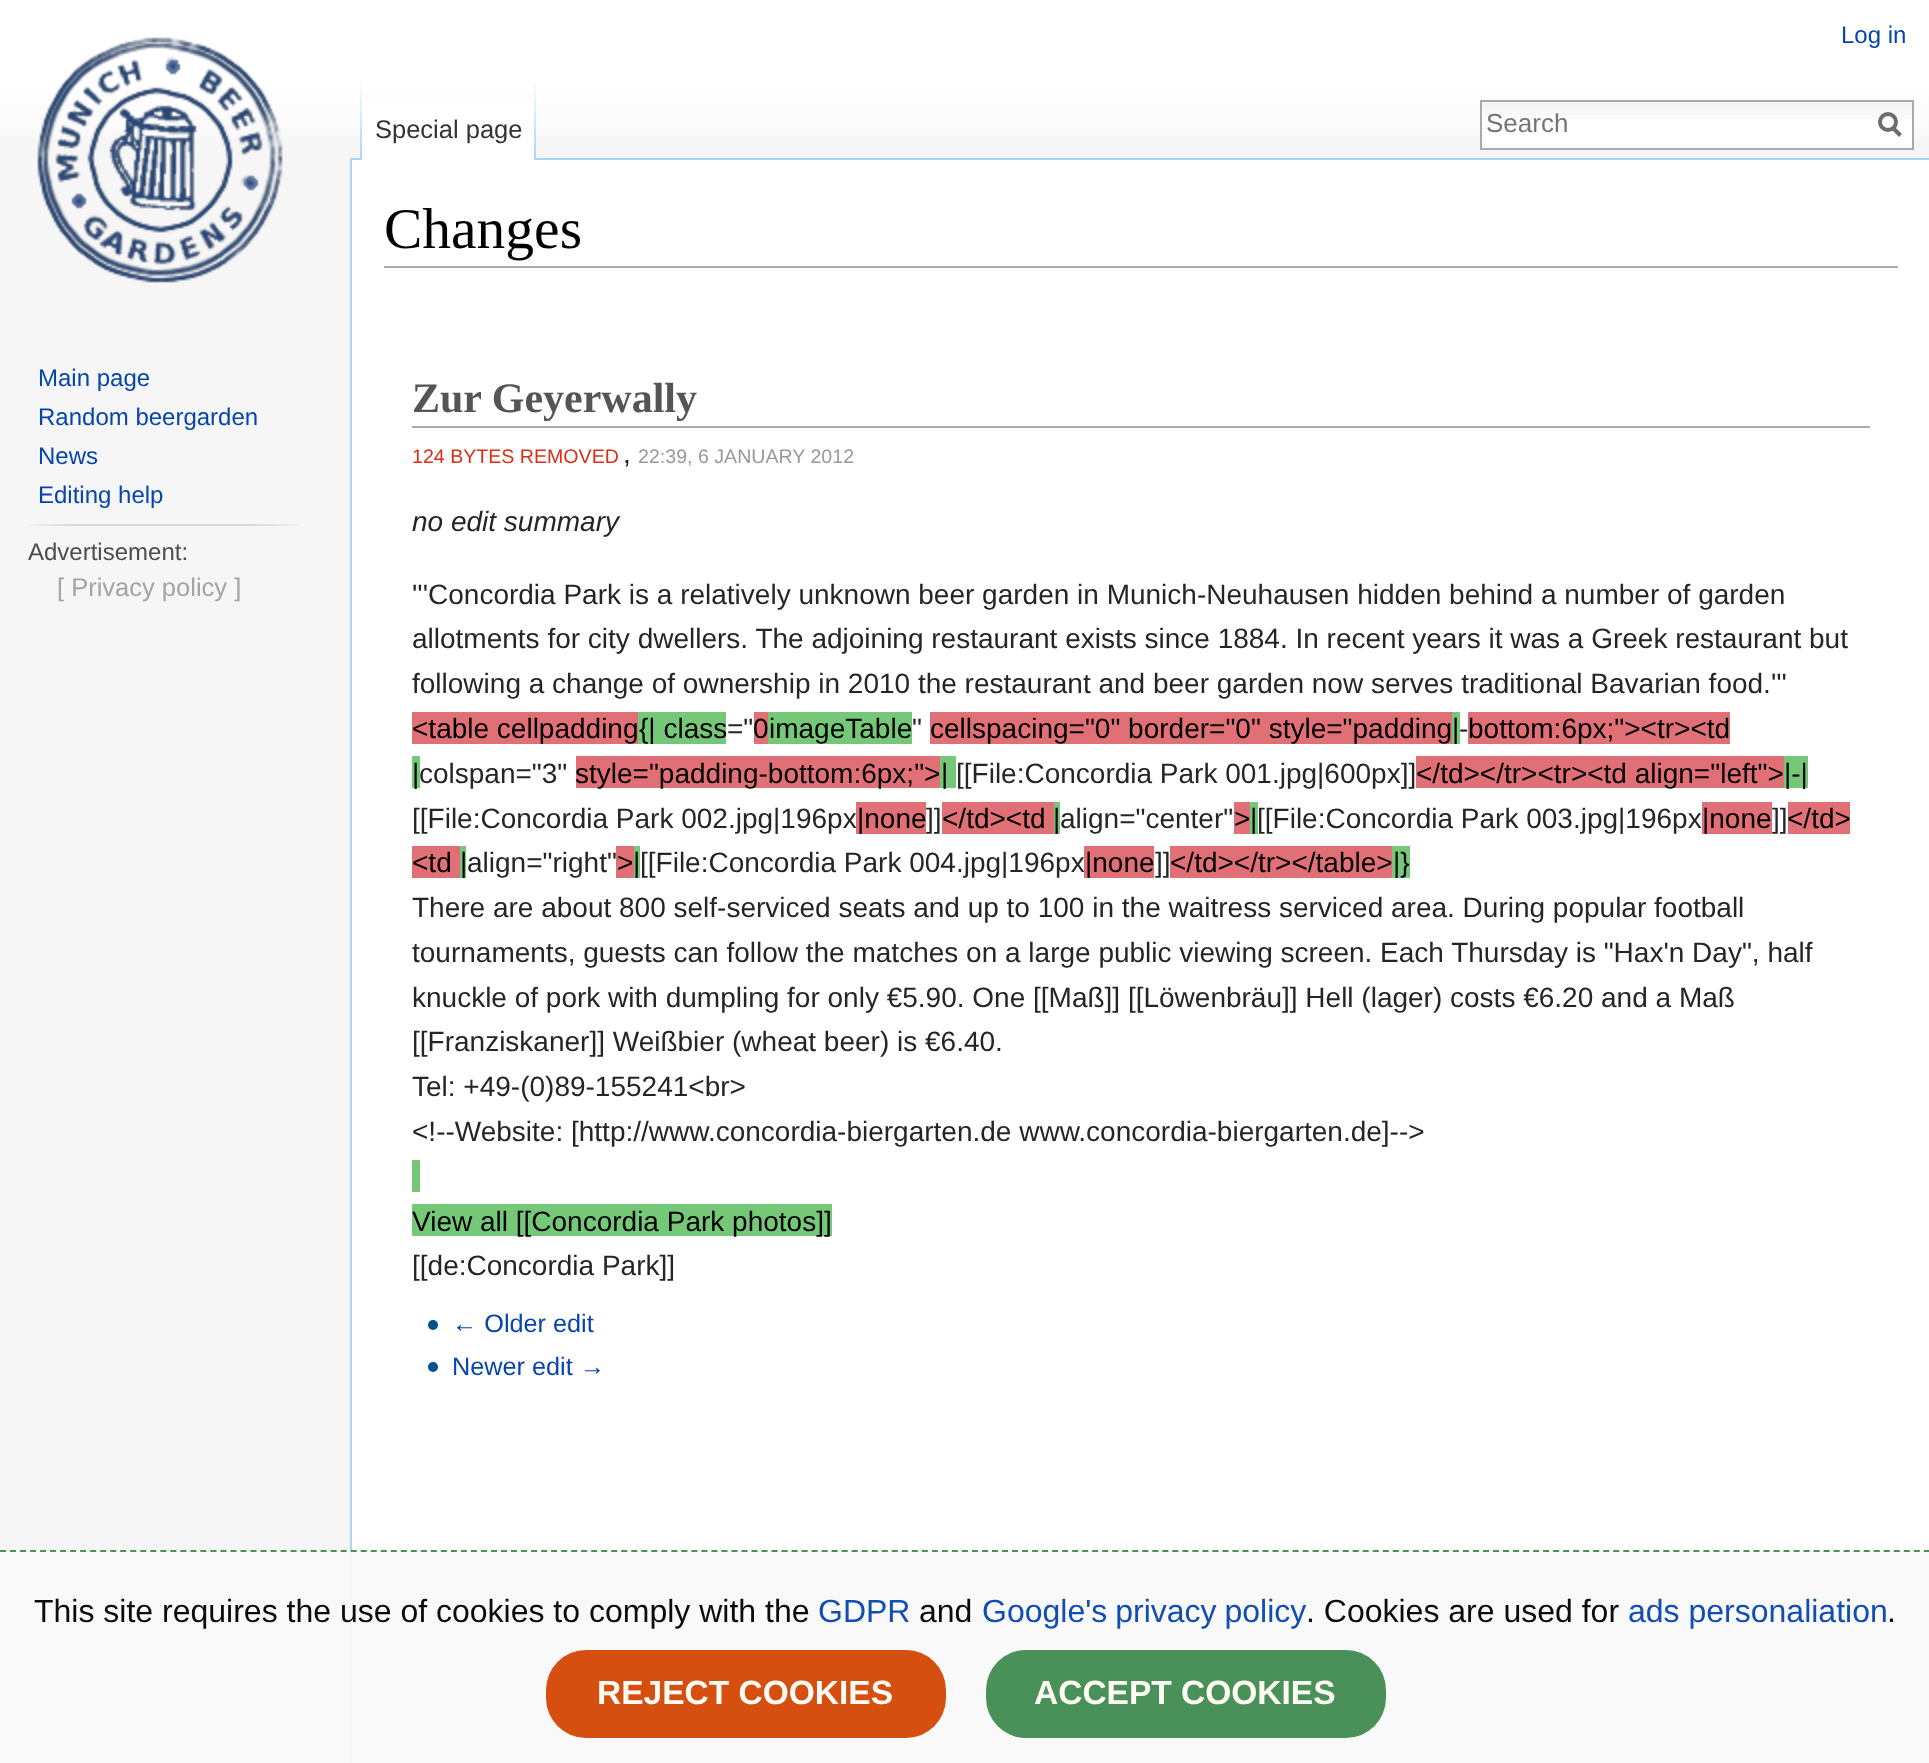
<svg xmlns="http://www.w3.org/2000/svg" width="1929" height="1763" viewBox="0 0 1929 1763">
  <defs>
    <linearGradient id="g1" gradientUnits="userSpaceOnUse" x1="965" y1="0" x2="965" y2="160"><stop offset="0.5" stop-color="#fff"/><stop offset="1" stop-color="#f6f6f6"/></linearGradient>
  </defs>
  <rect width="100%" height="100%" fill="#f6f6f6"/>
  <path d="M0 1550h350v213H0z" fill="#f9f9f9"/>
  <path d="M0 0h1929v138H0z" fill="url(#g1)"/>
  <image x="360" y="80" width="2" height="78" href="img/1.png"/>
  <path d="M350 158h1579v2H350z" fill="#a7d7f9"/>
  <path d="M362 102h174v58H362z" fill="#fff"/>
  <image x="534" y="81" width="2" height="79" href="img/2.png"/>
  <path d="M1482 119h430v29H1482z" fill="#fff"/>
  <image x="1482" y="102" width="430" height="17" href="img/3.png"/>
  <path d="M1481 101h432v48H1481z" fill="none" stroke="#aaa" stroke-width="2"/>
  <path d="M1900.5 135.5L1892.5 127.5" fill="none" stroke="#6c6c6c" stroke-width="4"/>
  <circle cx="1888" cy="122" r="8" fill="none" stroke="#6c6c6c" stroke-width="4"/>
  <image x="37" y="37" width="246" height="246" href="img/4.png"/>
  <image x="27" y="524" width="272" height="2" href="img/5.png"/>
  <path d="M352 160h1577v1390H352z" fill="#fff"/>
  <path d="M352 1550h1577v213H352z" fill="#f9f9f9"/>
  <path d="M350 158h2v1392H350z" fill="#a7d7f9"/>
  <path d="M350 1550h2v213H350z" fill="#f5f7f9"/>
  <path d="M384 266h1514v2H384z" fill="#aaa"/>
  <path d="M412 426h1458v2H412z" fill="#aaa"/>
  <path d="M412 712h226v32H412z" fill="#e07076"/>
  <path d="M638 712h88v32H638z" fill="#75c877"/>
  <path d="M754 712h14v32H754z" fill="#e07076"/>
  <path d="M768 712h144v32H768z" fill="#75c877"/>
  <path d="M930 712h522v32H930z" fill="#e07076"/>
  <path d="M1452 712h8v32H1452z" fill="#75c877"/>
  <path d="M1468 712h262v32H1468z" fill="#e07076"/>
  <path d="M412 756h8v32H412z" fill="#75c877"/>
  <path d="M576 756h364v32H576z" fill="#e07076"/>
  <path d="M940 756h16v32H940z" fill="#75c877"/>
  <path d="M1416 756h368v32H1416z" fill="#e07076"/>
  <path d="M1784 756h24v32H1784z" fill="#75c877"/>
  <path d="M942 802h112v32H942z" fill="#e07076"/>
  <path d="M1054 802h6v32H1054z" fill="#75c877"/>
  <path d="M1234 802h16v32H1234z" fill="#e07076"/>
  <path d="M1250 802h8v32H1250z" fill="#75c877"/>
  <path d="M1702 802h70v32H1702z" fill="#e07076"/>
  <path d="M1788 802h62v32H1788z" fill="#e07076"/>
  <path d="M412 846h48v32H412z" fill="#e07076"/>
  <path d="M460 846h6v32H460z" fill="#75c877"/>
  <path d="M616 846h18v32H616z" fill="#e07076"/>
  <path d="M634 846h6v32H634z" fill="#75c877"/>
  <path d="M1170 846h222v32H1170z" fill="#e07076"/>
  <path d="M1392 846h18v32H1392z" fill="#75c877"/>
  <path d="M412 1160h8v32H412z" fill="#75c877"/>
  <path d="M412 1204h420v32H412z" fill="#75c877"/>
  <image x="428" y="1320" width="10" height="10" href="img/6.png"/>
  <image x="428" y="1362" width="10" height="10" href="img/6.png"/>
  <path d="M0 1551H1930" fill="none" stroke="#3f8a50f2" stroke-width="2" stroke-dasharray="6 4.02"/>
  <rect x="546" y="1650" width="400" height="88" rx="40" fill="#d34603f2"/>
  <rect x="986" y="1650" width="400" height="88" rx="40" fill="#3f8a50f2"/>
  <text x="1841" y="43" font-family="Liberation Sans" font-size="24" fill="#0645ad">Log in</text>
  <text x="375" y="138" font-family="Liberation Sans" font-size="25.5" fill="#333">Special page</text>
  <text x="1486" y="132" font-family="Liberation Sans" font-size="26" fill="#757575">Search</text>
  <g font-family="Liberation Sans" font-size="24" fill="#0645ad">
    <text x="38" y="386">Main page</text>
    <text x="38" y="425">Random beergarden</text>
    <text x="38" y="464">News</text>
    <text x="38" y="503">Editing help</text>
  </g>
  <text x="28" y="560" font-family="Liberation Sans" font-size="24" fill="#4d4d4d">Advertisement:</text>
  <text x="57" y="596" font-family="Liberation Sans" font-size="25.5" fill="#a4a4a4">[ Privacy policy ]</text>
  <text x="384" y="248" font-family="Liberation Serif" font-size="57.5" fill="#000">Changes</text>
  <text x="412" y="412" font-family="Liberation Serif" font-size="42" font-weight="bold" fill="#555">Zur Geyerwally</text>
  <text x="412" y="463" font-family="Liberation Sans" font-size="19.6" fill="#dc2e16">124 BYTES REMOVED</text>
  <text x="623" y="463" font-family="Liberation Sans" font-size="28" fill="#252525">,</text>
  <text x="638" y="463" font-family="Liberation Sans" font-size="19.6" fill="#999">22:39, 6 JANUARY 2012</text>
  <text x="412" y="531" font-family="Liberation Sans" font-size="28" font-style="italic" fill="#252525">no edit summary</text>
  <g font-family="Liberation Sans" font-size="28" fill="#252525">
    <text x="412" y="604">'''Concordia Park is a relatively unknown beer garden in Munich-Neuhausen hidden behind a number of garden</text>
    <text x="412" y="648">allotments for city dwellers. The adjoining restaurant exists since 1884. In recent years it was a Greek restaurant but</text>
    <text x="412" y="693">following a change of ownership in 2010 the restaurant and beer garden now serves traditional Bavarian food.'''</text>
  </g>
  <g font-family="Liberation Sans" font-size="28" fill="#000">
    <text x="412" y="738">&lt;table cellpadding</text>
    <text x="639" y="738">{| class</text>
  </g>
  <text x="727" y="738" font-family="Liberation Sans" font-size="28" fill="#252525">="</text>
  <g font-family="Liberation Sans" font-size="28" fill="#000">
    <text x="753" y="738">0</text>
    <text x="769" y="738">imageTable</text>
  </g>
  <text x="912" y="738" font-family="Liberation Sans" font-size="28" fill="#252525">"</text>
  <g font-family="Liberation Sans" font-size="28" fill="#000">
    <text x="930" y="738">cellspacing="0" border="0" style="padding</text>
    <text x="1452" y="738">|</text>
    <text x="1468" y="738">bottom:6px;"&gt;&lt;tr&gt;&lt;td</text>
  </g>
  <text x="1459" y="738" font-family="Liberation Sans" font-size="28" fill="#252525">-</text>
  <text x="412" y="783" font-family="Liberation Sans" font-size="28" fill="#000">|</text>
  <text x="419" y="783" font-family="Liberation Sans" font-size="28" fill="#252525">colspan="3"</text>
  <g font-family="Liberation Sans" font-size="28" fill="#000">
    <text x="575" y="783">style="padding-bottom:6px;"&gt;</text>
    <text x="941" y="783">|</text>
  </g>
  <text x="956" y="783" font-family="Liberation Sans" font-size="28" fill="#252525">[[File:Concordia Park 001.jpg|600px]]</text>
  <g font-family="Liberation Sans" font-size="28" fill="#000">
    <text x="1416" y="783">&lt;/td&gt;&lt;/tr&gt;&lt;tr&gt;&lt;td align="left"&gt;</text>
    <text x="1784" y="783">|-|</text>
  </g>
  <text x="412" y="828" font-family="Liberation Sans" font-size="28" fill="#252525">[[File:Concordia Park 002.jpg|196px</text>
  <path d="M856 802h70v32H856z" fill="#e07076"/>
  <text x="857" y="828" font-family="Liberation Sans" font-size="28" fill="#000">|none</text>
  <text x="926" y="828" font-family="Liberation Sans" font-size="28" fill="#252525">]]</text>
  <g font-family="Liberation Sans" font-size="28" fill="#000">
    <text x="942" y="828">&lt;/td&gt;&lt;td</text>
    <text x="1053" y="828">|</text>
  </g>
  <text x="1060" y="828" font-family="Liberation Sans" font-size="28" fill="#252525">align="center"</text>
  <g font-family="Liberation Sans" font-size="28" fill="#000">
    <text x="1234" y="828">&gt;</text>
    <text x="1250" y="828">|</text>
  </g>
  <text x="1257" y="828" font-family="Liberation Sans" font-size="28" fill="#252525">[[File:Concordia Park 003.jpg|196px</text>
  <text x="1702" y="828" font-family="Liberation Sans" font-size="28" fill="#000">|none</text>
  <text x="1772" y="828" font-family="Liberation Sans" font-size="28" fill="#252525">]]</text>
  <g font-family="Liberation Sans" font-size="28" fill="#000">
    <text x="1787" y="828">&lt;/td&gt;</text>
    <text x="412" y="872">&lt;td</text>
    <text x="460" y="872">|</text>
  </g>
  <text x="467" y="872" font-family="Liberation Sans" font-size="28" fill="#252525">align="right"</text>
  <g font-family="Liberation Sans" font-size="28" fill="#000">
    <text x="617" y="872">&gt;</text>
    <text x="633" y="872">|</text>
  </g>
  <text x="640" y="872" font-family="Liberation Sans" font-size="28" fill="#252525">[[File:Concordia Park 004.jpg|196px</text>
  <path d="M1084 846h70v32H1084z" fill="#e07076"/>
  <text x="1085" y="872" font-family="Liberation Sans" font-size="28" fill="#000">|none</text>
  <text x="1155" y="872" font-family="Liberation Sans" font-size="28" fill="#252525">]]</text>
  <g font-family="Liberation Sans" font-size="28" fill="#000">
    <text x="1170" y="872">&lt;/td&gt;&lt;/tr&gt;&lt;/table&gt;</text>
    <text x="1393" y="872">|}</text>
  </g>
  <g font-family="Liberation Sans" font-size="28" fill="#252525">
    <text x="412" y="917">There are about 800 self-serviced seats and up to 100 in the waitress serviced area. During popular football</text>
    <text x="412" y="962">tournaments, guests can follow the matches on a large public viewing screen. Each Thursday is "Hax'n Day", half</text>
    <text x="412" y="1007">knuckle of pork with dumpling for only €5.90. One [[Maß]] [[Löwenbräu]] Hell (lager) costs €6.20 and a Maß</text>
    <text x="412" y="1051">[[Franziskaner]] Weißbier (wheat beer) is €6.40.</text>
    <text x="412" y="1096">Tel: +49-(0)89-155241&lt;br&gt;</text>
    <text x="412" y="1141">&lt;!--Website: [http://www.concordia-biergarten.de www.concordia-biergarten.de]--&gt;</text>
  </g>
  <text x="412" y="1231" font-family="Liberation Sans" font-size="28" fill="#000">View all [[Concordia Park photos]]</text>
  <text x="412" y="1275" font-family="Liberation Sans" font-size="28" fill="#252525">[[de:Concordia Park]]</text>
  <g font-family="Liberation Sans" font-size="25.25" fill="#0645ad">
    <text x="452" y="1332">← Older edit</text>
    <text x="452" y="1375">Newer edit →</text>
  </g>
  <text x="34" y="1622" font-family="Liberation Sans" font-size="32" fill="#0c0c0c">This site requires the use of cookies to comply with the</text>
  <text x="818" y="1622" font-family="Liberation Sans" font-size="32" fill="#124eb1">GDPR</text>
  <text x="919" y="1622" font-family="Liberation Sans" font-size="32" fill="#0c0c0c">and</text>
  <text x="982" y="1622" word-spacing="-1" font-family="Liberation Sans" font-size="32" fill="#124eb1">Google's privacy policy</text>
  <text x="1306" y="1622" font-family="Liberation Sans" font-size="32" fill="#0c0c0c">. Cookies are used for</text>
  <text x="1628" y="1622" font-family="Liberation Sans" font-size="32" fill="#124eb1">ads personaliation</text>
  <text x="1887" y="1622" font-family="Liberation Sans" font-size="32" fill="#0c0c0c">.</text>
  <g font-family="Liberation Sans" font-size="33.5" font-weight="bold" fill="#fffcf4">
    <text x="597" y="1704">REJECT COOKIES</text>
    <text x="1034" y="1704">ACCEPT COOKIES</text>
  </g>
</svg>
